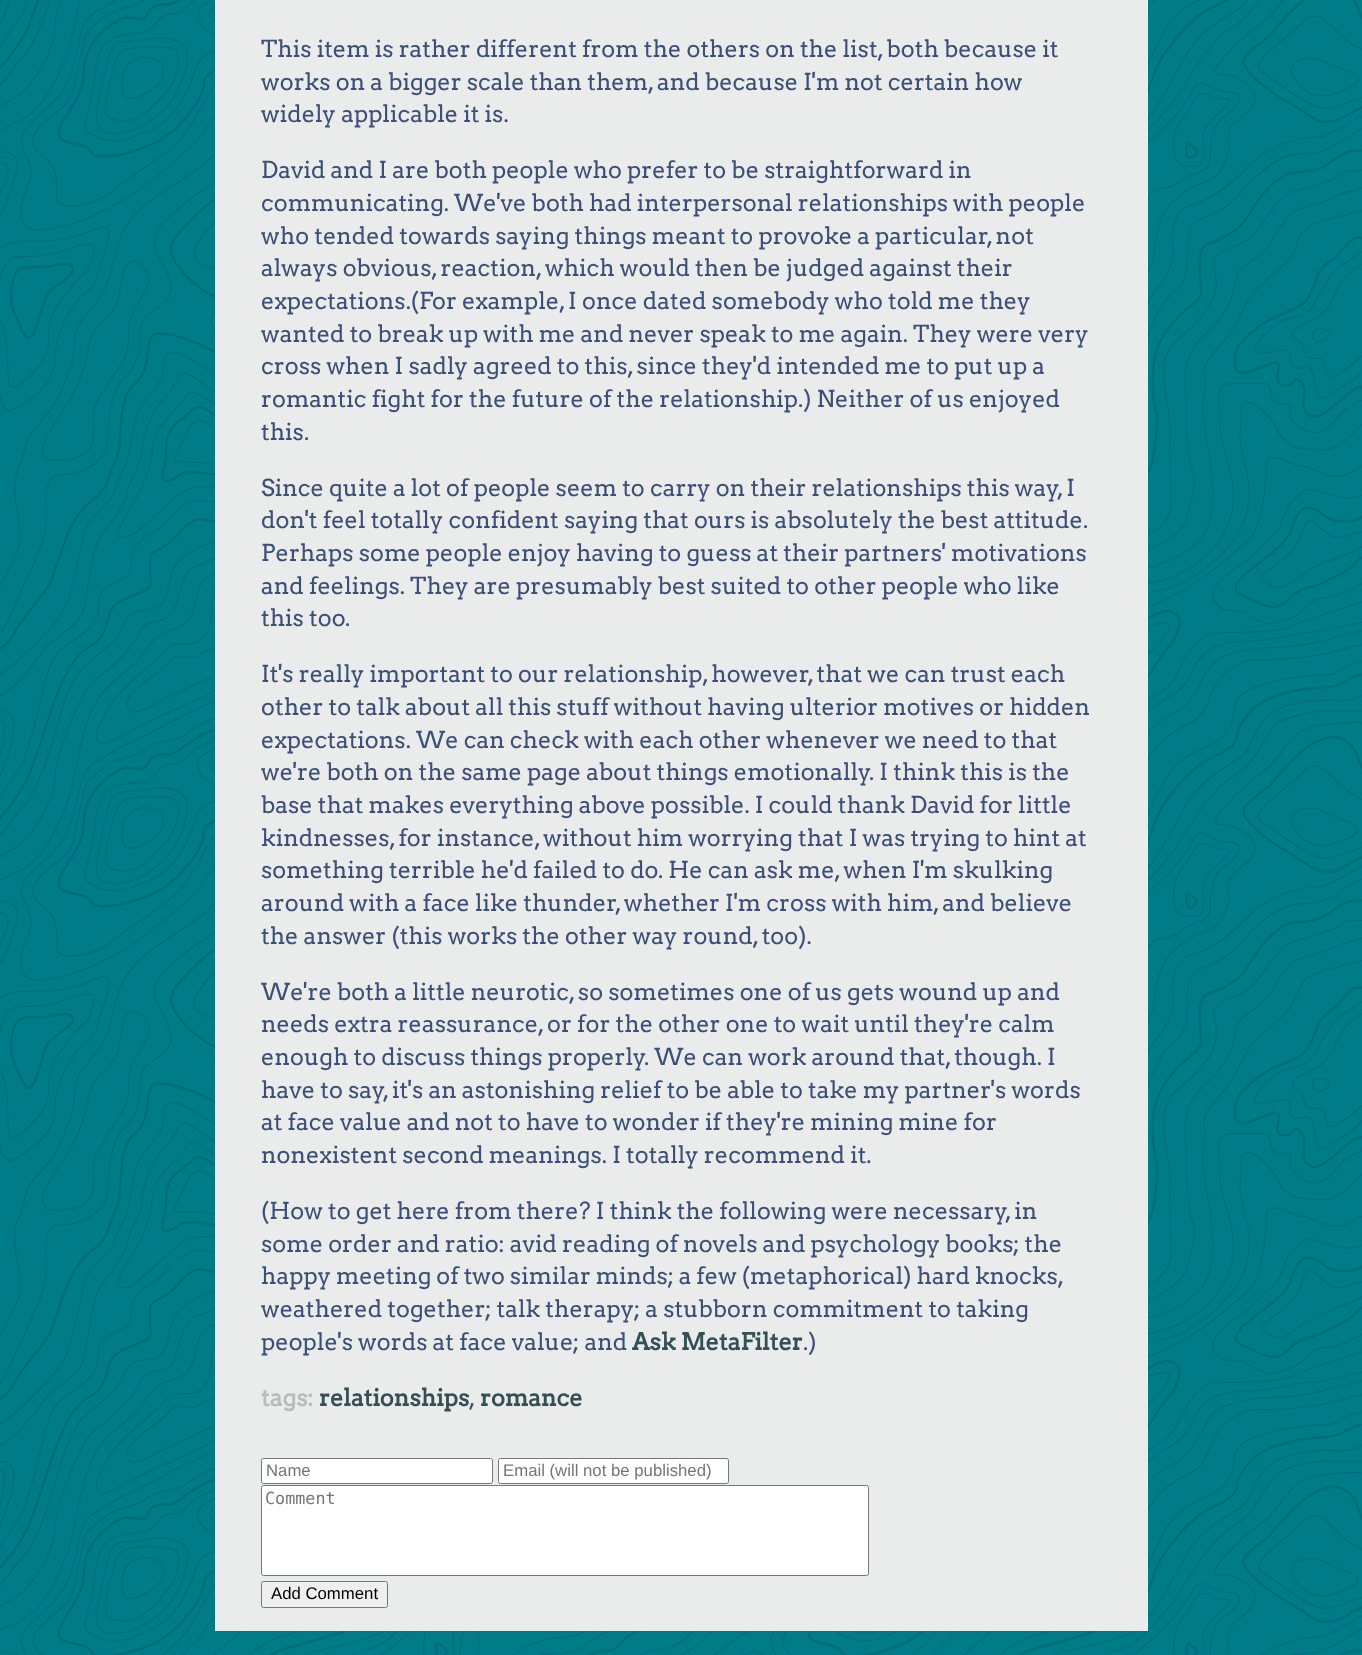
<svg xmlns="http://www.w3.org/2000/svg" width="1362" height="1655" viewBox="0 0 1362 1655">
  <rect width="100%" height="100%" fill="#007c89"/>
  <image x="0" y="0" width="1362" height="1655" href="img/1.png"/>
  <path d="M215 0h933v1631H215z" fill="#e9eceb"/>
  <rect x="261.5" y="1458.5" width="231" height="25" rx="2" fill="#fff" stroke="#767676"/>
  <rect x="498.5" y="1458.5" width="230" height="25" rx="2" fill="#fff" stroke="#767676"/>
  <rect x="261.5" y="1485.5" width="607" height="90" rx="2" fill="#fff" stroke="#767676"/>
  <rect x="261.5" y="1581.5" width="126" height="26" rx="2" fill="#efefef" stroke="#767676"/>
  <g font-family="Arvo" font-size="23.35" fill="#3c4f76">
    <text x="261" y="57">This item is rather different from the others on the list, both because it</text>
    <text x="261" y="90">works on a bigger scale than them, and because I'm not certain how</text>
    <text x="261" y="122">widely applicable it is.</text>
    <text x="261" y="178">David and I are both people who prefer to be straightforward in</text>
    <text x="261" y="211">communicating. We've both had interpersonal relationships with people</text>
    <text x="261" y="244">who tended towards saying things meant to provoke a particular, not</text>
    <text x="261" y="276">always obvious, reaction, which would then be judged against their</text>
    <text x="261" y="309">expectations.(For example, I once dated somebody who told me they</text>
    <text x="261" y="342">wanted to break up with me and never speak to me again. They were very</text>
    <text x="261" y="374">cross when I sadly agreed to this, since they'd intended me to put up a</text>
    <text x="261" y="407">romantic fight for the future of the relationship.) Neither of us enjoyed</text>
    <text x="261" y="440">this.</text>
    <text x="261" y="496">Since quite a lot of people seem to carry on their relationships this way, I</text>
    <text x="261" y="528">don't feel totally confident saying that ours is absolutely the best attitude.</text>
    <text x="261" y="561">Perhaps some people enjoy having to guess at their partners' motivations</text>
    <text x="261" y="594">and feelings. They are presumably best suited to other people who like</text>
    <text x="261" y="626">this too.</text>
    <text x="261" y="682">It's really important to our relationship, however, that we can trust each</text>
    <text x="261" y="715">other to talk about all this stuff without having ulterior motives or hidden</text>
    <text x="261" y="748">expectations. We can check with each other whenever we need to that</text>
    <text x="261" y="780">we're both on the same page about things emotionally. I think this is the</text>
    <text x="261" y="813">base that makes everything above possible. I could thank David for little</text>
    <text x="261" y="846">kindnesses, for instance, without him worrying that I was trying to hint at</text>
    <text x="261" y="878">something terrible he'd failed to do. He can ask me, when I'm skulking</text>
    <text x="261" y="911">around with a face like thunder, whether I'm cross with him, and believe</text>
    <text x="261" y="944">the answer (this works the other way round, too).</text>
    <text x="261" y="1000">We're both a little neurotic, so sometimes one of us gets wound up and</text>
    <text x="261" y="1032">needs extra reassurance, or for the other one to wait until they're calm</text>
    <text x="261" y="1065">enough to discuss things properly. We can work around that, though. I</text>
    <text x="261" y="1098">have to say, it's an astonishing relief to be able to take my partner's words</text>
    <text x="261" y="1130">at face value and not to have to wonder if they're mining mine for</text>
    <text x="261" y="1163">nonexistent second meanings. I totally recommend it.</text>
    <text x="261" y="1219">(How to get here from there? I think the following were necessary, in</text>
    <text x="261" y="1252">some order and ratio: avid reading of novels and psychology books; the</text>
    <text x="261" y="1284" word-spacing="-0.25">happy meeting of two similar minds; a few (metaphorical) hard knocks,</text>
    <text x="261" y="1317">weathered together; talk therapy; a stubborn commitment to taking</text>
    <text x="261" y="1350">people's words at face value; and</text>
  </g>
  <text x="632" y="1350" font-family="Arvo" font-size="23.35" font-weight="bold" fill="#355055">Ask MetaFilter</text>
  <text x="803" y="1350" font-family="Arvo" font-size="23.35" fill="#3c4f76">.)</text>
  <text x="261" y="1406" font-family="Arvo" font-size="23.35" font-weight="bold" fill="#bbb">tags:</text>
  <text x="319" y="1406" font-family="Arvo" font-size="23.35" font-weight="bold" fill="#355055">relationships</text>
  <text x="469" y="1406" font-family="Arvo" font-size="23.35" fill="#3c4f76">,</text>
  <text x="480" y="1406" font-family="Arvo" font-size="23.35" font-weight="bold" fill="#355055">romance</text>
  <g font-family="Liberation Sans" font-size="16.75" fill="#757575">
    <text x="266" y="1476">Name</text>
    <text x="503" y="1476">Email (will not be published)</text>
  </g>
  <text x="265" y="1504" font-family="DejaVu Sans Mono" font-size="16.75" fill="#757575">Comment</text>
  <text x="271" y="1599" font-family="Liberation Sans" font-size="16.75" fill="#000">Add Comment</text>
</svg>
